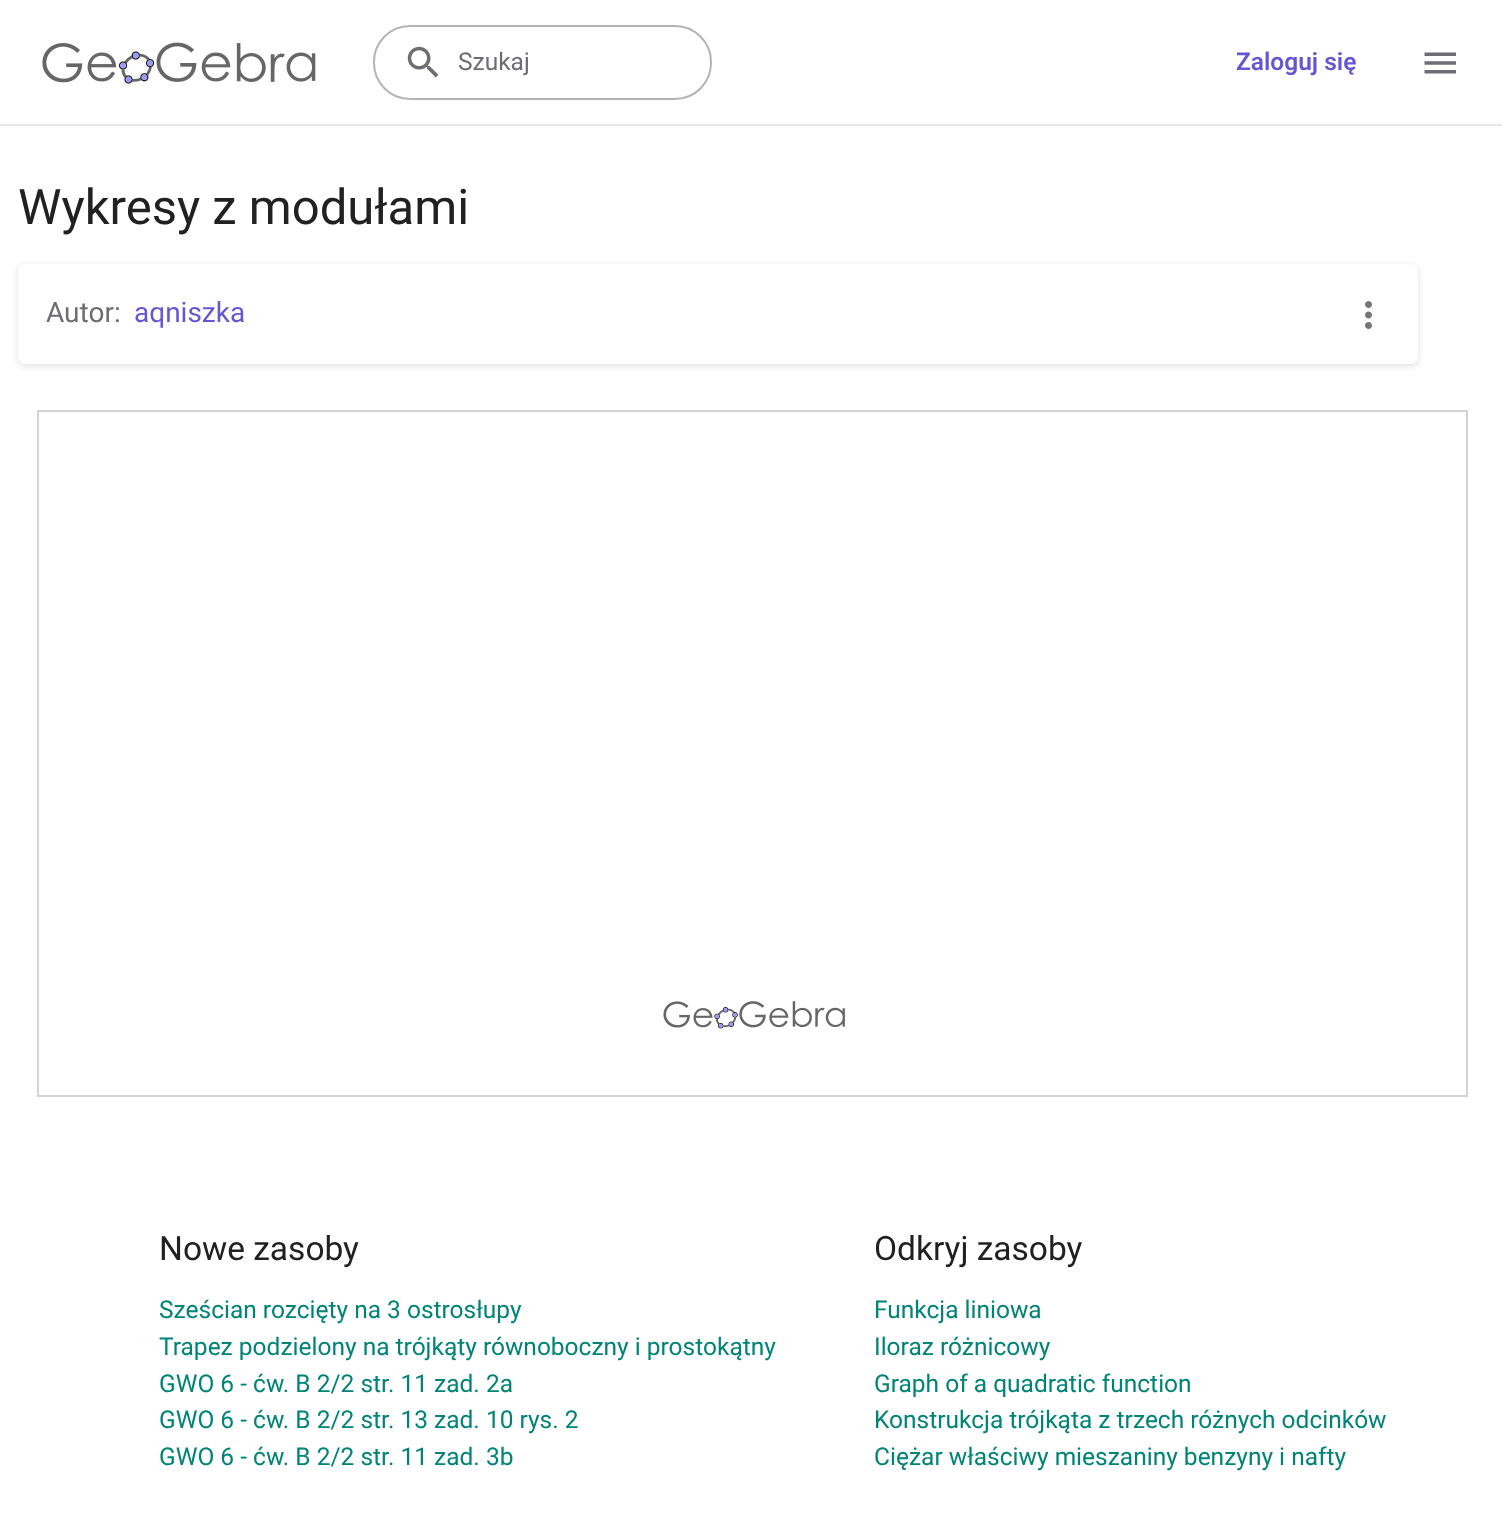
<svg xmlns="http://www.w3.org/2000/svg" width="1502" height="1536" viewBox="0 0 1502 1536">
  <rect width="100%" height="100%" fill="#fff"/>
  <path d="M0 124h1502v2H0z" fill="#e6e6eb"/>
  <image x="42" y="42" width="274" height="42" href="img/1.png"/>
  <rect x="374" y="26" width="337" height="73" rx="36" fill="none" stroke="#b4b3ba" stroke-width="2"/>
  <image x="407" y="46" width="32" height="32" href="img/2.png"/>
  <image x="1424" y="52" width="32" height="22" href="img/3.png"/>
  <rect x="18" y="266" width="1400" height="100" rx="7" fill="#1c1c1f24" filter="blur(3.5px)"/>
  <rect x="18" y="264" width="1400" height="100" rx="7" fill="#fff"/>
  <image x="1365" y="301" width="7" height="28" href="img/4.png"/>
  <image x="663" y="1001" width="182" height="28" href="img/5.png"/>
  <path d="M38 411h1429v685H38z" fill="none" stroke="#d3d3d3" stroke-width="2"/>
  <text x="458" y="70" font-family="Roboto" font-size="24.5" fill="#6e6d73">Szukaj</text>
  <text x="1236" y="70" font-family="Roboto" font-size="24.5" font-weight="600" fill="#6557d2">Zaloguj się</text>
  <text x="18" y="224" font-family="Roboto" font-size="49" fill="#212121">Wykresy z modułami</text>
  <text x="46" y="322" font-family="Roboto" font-size="28" fill="#6e6d73">Autor:</text>
  <text x="134" y="322" font-family="Roboto" font-size="28" fill="#6557d2">aqniszka</text>
  <text x="159" y="1260" font-family="Roboto" font-size="33.5" fill="#212121">Nowe zasoby</text>
  <g font-family="Roboto" font-size="24.5" fill="#008475">
    <text x="159" y="1318">Sześcian rozcięty na 3 ostrosłupy</text>
    <text x="159" y="1355">Trapez podzielony na trójkąty równoboczny i prostokątny</text>
    <text x="159" y="1392">GWO 6 - ćw. B 2/2 str. 11 zad. 2a</text>
    <text x="159" y="1428">GWO 6 - ćw. B 2/2 str. 13 zad. 10 rys. 2</text>
    <text x="159" y="1465">GWO 6 - ćw. B 2/2 str. 11 zad. 3b</text>
  </g>
  <text x="874" y="1260" font-family="Roboto" font-size="33.5" fill="#212121">Odkryj zasoby</text>
  <g font-family="Roboto" font-size="24.5" fill="#008475">
    <text x="874" y="1318">Funkcja liniowa</text>
    <text x="874" y="1355">Iloraz różnicowy</text>
    <text x="874" y="1392">Graph of a quadratic function</text>
    <text x="874" y="1428">Konstrukcja trójkąta z trzech różnych odcinków</text>
    <text x="874" y="1465">Ciężar właściwy mieszaniny benzyny i nafty</text>
  </g>
</svg>
